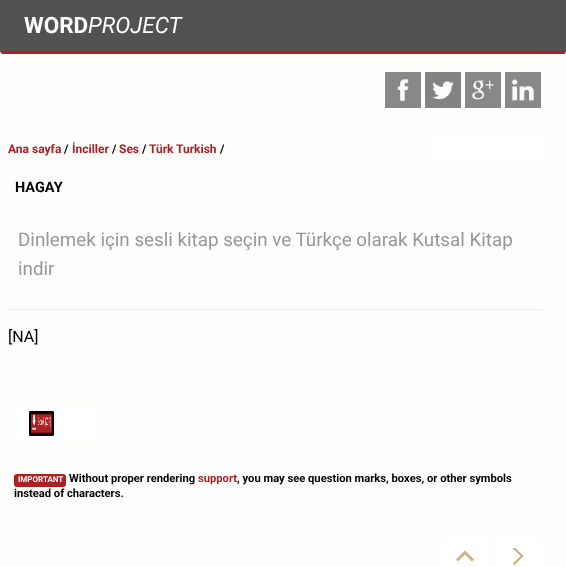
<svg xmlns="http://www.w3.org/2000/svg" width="566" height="567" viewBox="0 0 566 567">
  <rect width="100%" height="100%" fill="#fefefc"/>
  <path d="M0 0H566V51C566 52.5 564.5 54 563 54H3C1.5 54 0 52.5 0 51Z" fill="#535151"/>
  <path d="M2 51h563v3H2z" fill="#aa2023"/>
  <image x="385" y="72" width="36" height="36" href="img/1.png"/>
  <image x="425" y="72" width="36" height="36" href="img/2.png"/>
  <image x="465" y="72" width="36" height="36" href="img/3.png"/>
  <image x="505" y="72" width="36" height="36" href="img/4.png"/>
  <rect x="432" y="138" width="21" height="24" rx="3" fill="#fff"/>
  <rect x="456" y="138" width="56" height="24" rx="3" fill="#fff"/>
  <rect x="515" y="138" width="25" height="24" rx="3" fill="#fff"/>
  <path d="M8 309h534v1H8z" fill="#eee"/>
  <rect x="19" y="408" width="76" height="32" rx="2.5" fill="#fff"/>
  <image x="29" y="411" width="25" height="25" href="img/5.png"/>
  <rect x="14" y="474" width="52" height="13" rx="3" fill="#aa2023"/>
  <rect x="443" y="541" width="45" height="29" rx="2.5" fill="#fff"/>
  <image x="455" y="550" width="20" height="17" href="img/6.png"/>
  <rect x="496" y="541" width="45" height="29" rx="2.5" fill="#fff"/>
  <image x="512" y="548" width="11" height="17" href="img/7.png"/>
  <text x="24" y="33" font-family="Roboto" font-size="22.5" font-weight="bold" fill="#fefefc">WORD</text>
  <text x="88" y="33" font-family="Roboto" font-size="22.5" font-style="italic" fill="#fefefc">PROJECT</text>
  <text x="8" y="153" font-family="Roboto" font-size="12" font-weight="bold" fill="#aa2023">Ana sayfa</text>
  <text x="64" y="153" font-family="Roboto" font-size="12" font-weight="bold" fill="#000">/</text>
  <text x="72" y="153" font-family="Roboto" font-size="12" font-weight="bold" fill="#aa2023">İnciller</text>
  <text x="112" y="153" font-family="Roboto" font-size="12" font-weight="bold" fill="#000">/</text>
  <text x="119" y="153" font-family="Roboto" font-size="12" font-weight="bold" fill="#aa2023">Ses</text>
  <text x="142" y="153" font-family="Roboto" font-size="12" font-weight="bold" fill="#000">/</text>
  <g font-family="Roboto" font-size="12" font-weight="bold" fill="#aa2023">
    <text x="149" y="153">Türk</text>
    <text x="176" y="153">Turkish</text>
  </g>
  <text x="220" y="153" font-family="Roboto" font-size="12" font-weight="bold" fill="#000">/</text>
  <text x="15" y="192" font-family="Roboto" font-size="14.5" font-weight="bold" fill="#000">HAGAY</text>
  <g font-family="Roboto" font-size="18.8" fill="#979797">
    <text x="18" y="246">Dinlemek için sesli kitap seçin ve Türkçe olarak Kutsal Kitap</text>
    <text x="18" y="275">indir</text>
  </g>
  <text x="8" y="342" font-family="Roboto" font-size="16" fill="#000">[NA]</text>
  <text x="18" y="482" font-family="Roboto" font-size="8" font-weight="bold" fill="#fefefc">IMPORTANT</text>
  <text x="69" y="482" font-family="Roboto" font-size="11.2" font-weight="bold" fill="#000">Without proper rendering</text>
  <text x="198" y="482" font-family="Roboto" font-size="11.2" font-weight="bold" fill="#aa2023">support</text>
  <g font-family="Roboto" font-size="11.2" font-weight="bold" fill="#000">
    <text x="237" y="482">, you may see question marks, boxes, or other symbols</text>
    <text x="14" y="497">instead of characters.</text>
  </g>
</svg>
